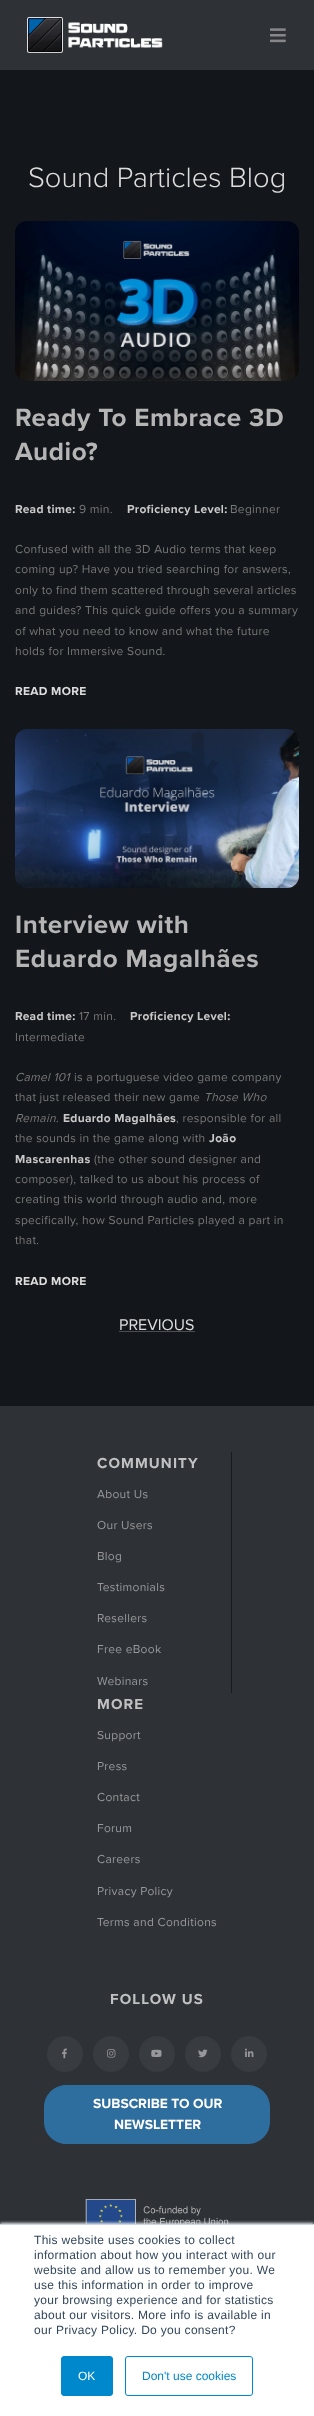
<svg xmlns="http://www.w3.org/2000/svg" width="314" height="2416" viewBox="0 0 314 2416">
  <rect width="100%" height="100%" fill="#13161a"/>
  <path d="M0 0h314v70H0z" fill="#2e3136"/>
  <image x="27" y="17" width="136" height="36" href="img/1.png"/>
  <image x="270" y="28" width="16" height="15" href="img/2.png"/>
  <image x="15" y="221" width="284" height="160" href="img/3.png"/>
  <image x="15" y="729" width="284" height="159" href="img/4.png"/>
  <path d="M119 1331h76v1H119z" fill="#4c4d53"/>
  <path d="M0 1406h314v818H0z" fill="#2e3136"/>
  <path d="M231 1452h1v241H231z" fill="#181b1f"/>
  <circle cx="65" cy="2054" r="18" fill="#383b40"/>
  <image x="62" y="2048" width="5" height="11" href="img/5.png"/>
  <circle cx="111" cy="2054" r="18" fill="#383b40"/>
  <image x="107" y="2049" width="9" height="9" href="img/6.png"/>
  <circle cx="157" cy="2054" r="18" fill="#383b40"/>
  <image x="151" y="2049" width="11" height="8" href="img/7.png"/>
  <circle cx="203" cy="2054" r="18" fill="#383b40"/>
  <image x="198" y="2049" width="10" height="9" href="img/8.png"/>
  <circle cx="249" cy="2054" r="18" fill="#383b40"/>
  <image x="245" y="2048" width="9" height="9" href="img/9.png"/>
  <rect x="44" y="2085" width="226" height="59" rx="22" fill="#2e6e9f"/>
  <image x="85" y="2199" width="144" height="25" href="img/10.png"/>
  <path d="M0 2223h314v192H0z" fill="#eaf0f6" filter="blur(1.5px)"/>
  <path d="M0 2225h314v191H0z" fill="#fff"/>
  <path d="M0 2224h314v1H0z" fill="#cbd6e2"/>
  <rect x="61.5" y="2356.5" width="51" height="39" rx="2.5" fill="#08c" stroke="#08c"/>
  <rect x="125.5" y="2356.5" width="127" height="39" rx="2.5" fill="none" stroke="#08c"/>
  <text x="28" y="187" font-family="Proxima Nova" font-size="29" font-weight="300" fill="#ddd">Sound Particles Blog</text>
  <g font-family="Proxima Nova" font-size="26" font-weight="bold" letter-spacing="0.6" fill="#b5b5b6">
    <text x="15" y="426">Ready To Embrace 3D</text>
    <text x="15" y="460">Audio?</text>
  </g>
  <text x="15" y="513" font-family="Proxima Nova" font-size="12" font-weight="bold" letter-spacing="0.3" fill="#c9c9ca">Read time:</text>
  <text x="79" y="513" font-family="Proxima Nova" font-size="12" letter-spacing="0.3" fill="#777">9 min.</text>
  <text x="127" y="513" font-family="Proxima Nova" font-size="12" font-weight="bold" letter-spacing="0.3" fill="#c9c9ca">Proficiency Level:</text>
  <g font-family="Proxima Nova" font-size="12" letter-spacing="0.3" fill="#777">
    <text x="230" y="513">Beginner</text>
    <text x="15" y="553">Confused with all the 3D Audio terms that keep</text>
    <text x="15" y="573">coming up? Have you tried searching for answers,</text>
    <text x="15" y="594">only to find them scattered through several articles</text>
    <text x="15" y="614">and guides? This quick guide offers you a summary</text>
    <text x="15" y="635">of what you need to know and what the future</text>
    <text x="15" y="655">holds for Immersive Sound.</text>
  </g>
  <text x="15" y="695" font-family="Proxima Nova" font-size="12" font-weight="bold" letter-spacing="0.3" fill="#ddd">READ MORE</text>
  <g font-family="Proxima Nova" font-size="26" font-weight="bold" letter-spacing="0.6" fill="#b5b5b6">
    <text x="15" y="933">Interview with</text>
    <text x="15" y="967">Eduardo Magalhães</text>
  </g>
  <text x="15" y="1020" font-family="Proxima Nova" font-size="12" font-weight="bold" letter-spacing="0.3" fill="#c9c9ca">Read time:</text>
  <text x="79" y="1020" font-family="Proxima Nova" font-size="12" letter-spacing="0.3" fill="#777">17 min.</text>
  <text x="130" y="1020" font-family="Proxima Nova" font-size="12" font-weight="bold" letter-spacing="0.3" fill="#c9c9ca">Proficiency Level:</text>
  <text x="15" y="1041" font-family="Proxima Nova" font-size="12" letter-spacing="0.3" fill="#777">Intermediate</text>
  <text x="15" y="1081" font-family="Proxima Nova" font-size="12" font-style="italic" letter-spacing="0.3" fill="#777">Camel 101</text>
  <g font-family="Proxima Nova" font-size="12" letter-spacing="0.3" fill="#777">
    <text x="74" y="1081">is a portuguese video game company</text>
    <text x="15" y="1101">that just released their new game</text>
  </g>
  <g font-family="Proxima Nova" font-size="12" font-style="italic" letter-spacing="0.3" fill="#777">
    <text x="204" y="1101">Those Who</text>
    <text x="15" y="1122">Remain.</text>
  </g>
  <text x="63" y="1122" font-family="Proxima Nova" font-size="12" font-weight="bold" letter-spacing="0.3" fill="#c9c9ca">Eduardo Magalhães</text>
  <g font-family="Proxima Nova" font-size="12" letter-spacing="0.3" fill="#777">
    <text x="176" y="1122">, responsible for all</text>
    <text x="15" y="1142">the sounds in the game along with</text>
  </g>
  <g font-family="Proxima Nova" font-size="12" font-weight="bold" letter-spacing="0.3" fill="#c9c9ca">
    <text x="209" y="1142">João</text>
    <text x="15" y="1163">Mascarenhas</text>
  </g>
  <g font-family="Proxima Nova" font-size="12" letter-spacing="0.3" fill="#777">
    <text x="94" y="1163">(the other sound designer and</text>
    <text x="15" y="1183">composer), talked to us about his process of</text>
    <text x="15" y="1203">creating this world through audio and, more</text>
    <text x="15" y="1224">specifically, how Sound Particles played a part in</text>
    <text x="15" y="1244">that.</text>
  </g>
  <text x="15" y="1285" font-family="Proxima Nova" font-size="12" font-weight="bold" letter-spacing="0.3" fill="#ddd">READ MORE</text>
  <text x="119" y="1330" font-family="Proxima Nova" font-size="16" fill="#ddd">PREVIOUS</text>
  <text x="97" y="1468" font-family="Proxima Nova" font-size="15" font-weight="bold" letter-spacing="1.1" fill="#c0c1c3">COMMUNITY</text>
  <g font-family="Proxima Nova" font-size="12" letter-spacing="0.3" fill="#97989b">
    <text x="97" y="1498">About Us</text>
    <text x="97" y="1529">Our Users</text>
    <text x="97" y="1560">Blog</text>
    <text x="97" y="1591">Testimonials</text>
    <text x="97" y="1622">Resellers</text>
    <text x="97" y="1653">Free eBook</text>
    <text x="97" y="1685">Webinars</text>
  </g>
  <text x="97" y="1709" font-family="Proxima Nova" font-size="15" font-weight="bold" letter-spacing="1.1" fill="#c0c1c3">MORE</text>
  <g font-family="Proxima Nova" font-size="12" letter-spacing="0.3" fill="#97989b">
    <text x="97" y="1739">Support</text>
    <text x="97" y="1770">Press</text>
    <text x="97" y="1801">Contact</text>
    <text x="97" y="1832">Forum</text>
    <text x="97" y="1863">Careers</text>
    <text x="97" y="1895">Privacy Policy</text>
    <text x="97" y="1926">Terms and Conditions</text>
  </g>
  <text x="110" y="2004" font-family="Proxima Nova" font-size="15" font-weight="bold" letter-spacing="1.1" fill="#c0c1c3">FOLLOW US</text>
  <g font-family="Proxima Nova" font-size="13.75" font-weight="bold" fill="#fff">
    <text x="93" y="2108">SUBSCRIBE TO OUR</text>
    <text x="114" y="2129">NEWSLETTER</text>
  </g>
  <g font-family="Liberation Sans" font-size="12" letter-spacing="0.3" fill="#33475b">
    <text x="34" y="2244">This website uses cookies to collect</text>
    <text x="34" y="2259">information about how you interact with our</text>
    <text x="34" y="2274">website and allow us to remember you. We</text>
    <text x="34" y="2289">use this information in order to improve</text>
    <text x="34" y="2304">your browsing experience and for statistics</text>
    <text x="34" y="2319">about our visitors. More info is available in</text>
    <text x="34" y="2334">our Privacy Policy. Do you consent?</text>
  </g>
  <text x="78" y="2380" font-family="Liberation Sans" font-size="12" fill="#fff">OK</text>
  <text x="142" y="2380" font-family="Liberation Sans" font-size="12" fill="#08c">Don't use cookies</text>
</svg>
